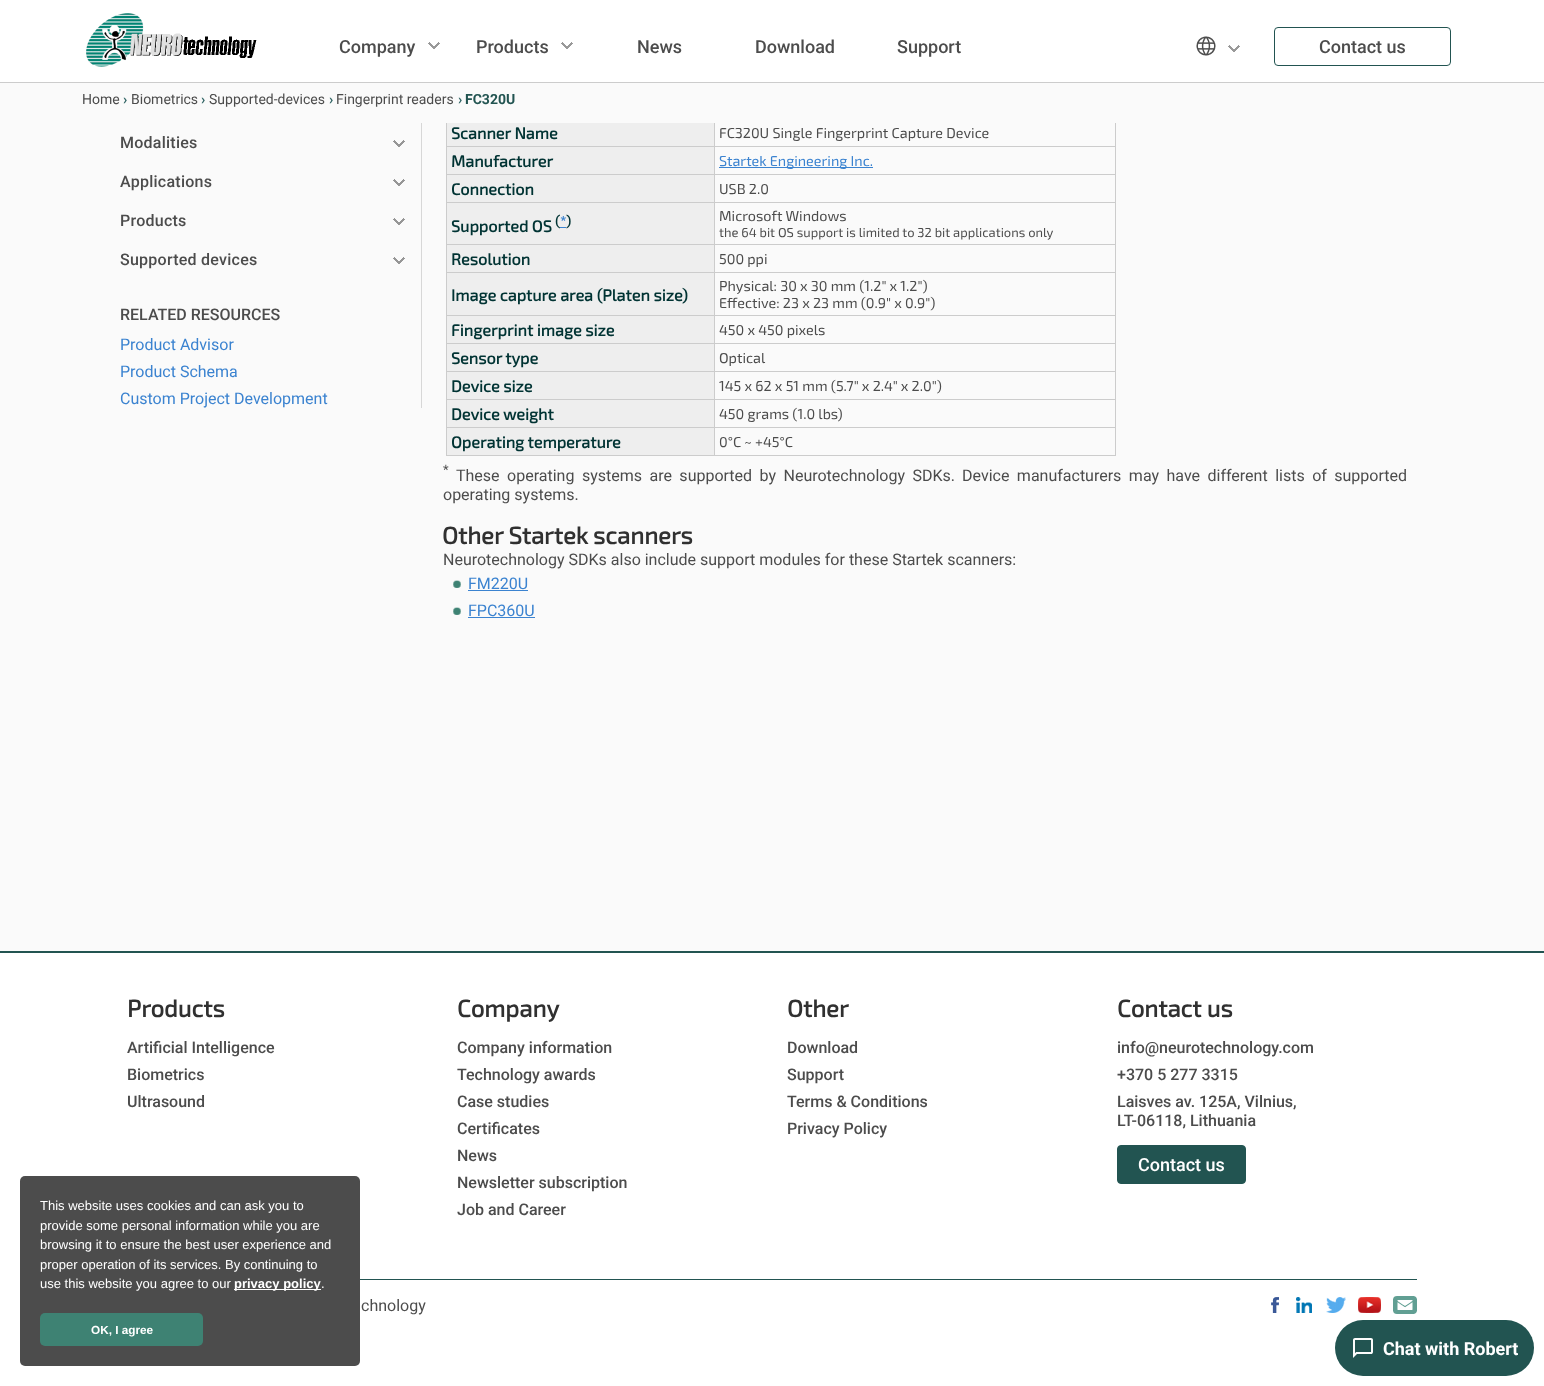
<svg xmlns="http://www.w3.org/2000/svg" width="1544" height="1386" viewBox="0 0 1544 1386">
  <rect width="100%" height="100%" fill="#fafafa"/>
  <path d="M0 0h1544v82H0z" fill="#fff"/>
  <path d="M0 82h1544v1H0z" fill="#ccc"/>
  <image x="86" y="13" width="171" height="54" href="img/1.png"/>
  <image x="428" y="42" width="12" height="7" href="img/2.png"/>
  <image x="561" y="42" width="12" height="7" href="img/2.png"/>
  <image x="1196" y="36" width="20" height="20" href="img/3.png"/>
  <image x="1228" y="45" width="12" height="7" href="img/2.png"/>
  <rect x="1274.5" y="27.5" width="176" height="38" rx="3.5" fill="none" stroke="#225451"/>
  <path d="M446 118h1v338H446z" fill="#ccc"/>
  <path d="M714 119h1v337H714z" fill="#ccc"/>
  <path d="M1115 119h1v337H1115z" fill="#ccc"/>
  <path d="M446 118h670v5H446z" fill="#fafafa"/>
  <path d="M421 123h1v285H421z" fill="#d7d7d7"/>
  <image x="393" y="140" width="12" height="7" href="img/4.png"/>
  <image x="393" y="179" width="12" height="7" href="img/4.png"/>
  <image x="393" y="218" width="12" height="7" href="img/4.png"/>
  <image x="393" y="257" width="12" height="7" href="img/4.png"/>
  <path d="M447 123h267v23H447z" fill="#eee"/>
  <path d="M447 146h268v1H447z" fill="#ccc"/>
  <path d="M715 146h401v1H715z" fill="#ccc"/>
  <path d="M447 147h267v27H447z" fill="#eee"/>
  <path d="M447 174h669v1H447z" fill="#ccc"/>
  <path d="M719 167h154v1H719z" fill="#3b83d0"/>
  <path d="M447 175h267v27H447z" fill="#eee"/>
  <path d="M447 202h669v1H447z" fill="#ccc"/>
  <path d="M447 203h267v41H447z" fill="#eee"/>
  <path d="M447 244h669v1H447z" fill="#ccc"/>
  <path d="M560 227h6v1H560z" fill="#3b83d0"/>
  <path d="M447 245h267v27H447z" fill="#eee"/>
  <path d="M447 272h669v1H447z" fill="#ccc"/>
  <path d="M447 273h267v42H447z" fill="#eee"/>
  <path d="M447 315h669v1H447z" fill="#ccc"/>
  <path d="M447 316h267v27H447z" fill="#eee"/>
  <path d="M447 343h669v1H447z" fill="#ccc"/>
  <path d="M447 344h267v27H447z" fill="#eee"/>
  <path d="M447 371h669v1H447z" fill="#ccc"/>
  <path d="M447 372h267v27H447z" fill="#eee"/>
  <path d="M447 399h669v1H447z" fill="#ccc"/>
  <path d="M447 400h267v27H447z" fill="#eee"/>
  <path d="M447 427h669v1H447z" fill="#ccc"/>
  <path d="M447 428h267v27H447z" fill="#eee"/>
  <path d="M447 455h669v1H447z" fill="#ccc"/>
  <image x="453" y="580" width="8" height="8" href="img/5.png"/>
  <path d="M468 590h60v1H468z" fill="#3b83d0"/>
  <image x="453" y="607" width="8" height="8" href="img/5.png"/>
  <path d="M468 617h67v1H468z" fill="#3b83d0"/>
  <path d="M0 953h1544v433H0z" fill="#fff"/>
  <path d="M0 951h1544v2H0z" fill="#225451"/>
  <rect x="1117.5" y="1145.5" width="128" height="38" rx="3.5" fill="#225451" stroke="#225451"/>
  <path d="M360 1279h1057v1H360z" fill="#225451"/>
  <image x="1271" y="1297" width="8" height="16" href="img/6.png"/>
  <image x="1296" y="1297" width="16" height="16" href="img/7.png"/>
  <image x="1326" y="1297" width="20" height="16" href="img/8.png"/>
  <image x="1358" y="1297" width="23" height="16" href="img/9.png"/>
  <image x="1393" y="1296" width="24" height="18" href="img/10.png"/>
  <rect x="20" y="1176" width="340" height="190" rx="5" fill="#4c4c4c"/>
  <path d="M234 1289h87v1H234z" fill="#fff"/>
  <rect x="40" y="1313" width="163" height="33" rx="5" fill="#3e8273"/>
  <rect x="1335" y="1320" width="199" height="56" rx="28" fill="#225451"/>
  <image x="1353" y="1338" width="20" height="20" href="img/11.png"/>
  <g font-family="Roboto" font-size="18" font-weight="500" fill="#4c4c4c">
    <text x="339" y="53">Company</text>
    <text x="476" y="53">Products</text>
    <text x="637" y="53">News</text>
    <text x="755" y="53">Download</text>
    <text x="897" y="53">Support</text>
    <text x="1319" y="53">Contact us</text>
  </g>
  <text x="82" y="104" font-family="Roboto" font-size="14" fill="#4c4c4c">Home</text>
  <text x="123" y="104" font-family="Roboto" font-size="14" font-weight="bold" fill="#366">›</text>
  <text x="131" y="104" font-family="Roboto" font-size="14" fill="#4c4c4c">Biometrics</text>
  <text x="201" y="104" font-family="Roboto" font-size="14" font-weight="bold" fill="#366">›</text>
  <text x="209" y="104" font-family="Roboto" font-size="14" fill="#4c4c4c">Supported-devices</text>
  <text x="329" y="104" font-family="Roboto" font-size="14" font-weight="bold" fill="#366">›</text>
  <text x="336" y="104" font-family="Roboto" font-size="14" fill="#4c4c4c">Fingerprint readers</text>
  <text x="458" y="104" font-family="Roboto" font-size="14" font-weight="bold" fill="#366">›</text>
  <text x="465" y="104" font-family="Roboto" font-size="14" font-weight="bold" fill="#225451">FC320U</text>
  <g font-family="Roboto" font-size="16" font-weight="500" letter-spacing="0.25" fill="#4c4c4c">
    <text x="120" y="148">Modalities</text>
    <text x="120" y="187">Applications</text>
    <text x="120" y="226">Products</text>
    <text x="120" y="265">Supported devices</text>
  </g>
  <text x="120" y="320" font-family="Roboto" font-size="16" font-weight="500" fill="#4c4c4c">RELATED RESOURCES</text>
  <g font-family="Roboto" font-size="16" fill="#3b83d0">
    <text x="120" y="350">Product Advisor</text>
    <text x="120" y="377">Product Schema</text>
    <text x="120" y="404">Custom Project Development</text>
  </g>
  <text x="451" y="139" font-family="'Exo 2'" font-size="16.25" font-weight="bold" fill="#033">Scanner Name</text>
  <text x="719" y="138" font-family="'Exo 2'" font-size="14.4" fill="#4c4c4c">FC320U Single Fingerprint Capture Device</text>
  <text x="451" y="167" font-family="'Exo 2'" font-size="16.25" font-weight="bold" fill="#033">Manufacturer</text>
  <text x="719" y="166" font-family="'Exo 2'" font-size="14.4" fill="#3b83d0">Startek Engineering Inc.</text>
  <text x="451" y="195" font-family="'Exo 2'" font-size="16.25" font-weight="bold" fill="#033">Connection</text>
  <text x="719" y="194" font-family="'Exo 2'" font-size="14.4" fill="#4c4c4c">USB 2.0</text>
  <text x="555" y="226" font-family="'Exo 2'" font-size="14" font-weight="bold" fill="#033">(</text>
  <text x="560" y="226" font-family="'Exo 2'" font-size="14" font-weight="bold" fill="#3b83d0">*</text>
  <text x="566" y="226" font-family="'Exo 2'" font-size="14" font-weight="bold" fill="#033">)</text>
  <text x="451" y="232" font-family="'Exo 2'" font-size="16.25" font-weight="bold" fill="#033">Supported OS</text>
  <text x="719" y="221" font-family="'Exo 2'" font-size="14.4" fill="#4c4c4c">Microsoft Windows</text>
  <text x="719" y="237" font-family="'Exo 2'" font-size="12.95" fill="#4c4c4c">the 64 bit OS support is limited to 32 bit applications only</text>
  <text x="451" y="265" font-family="'Exo 2'" font-size="16.25" font-weight="bold" fill="#033">Resolution</text>
  <text x="719" y="264" font-family="'Exo 2'" font-size="14.4" fill="#4c4c4c">500 ppi</text>
  <text x="451" y="301" font-family="'Exo 2'" font-size="16.25" font-weight="bold" fill="#033">Image capture area (Platen size)</text>
  <g font-family="'Exo 2'" font-size="14.4" fill="#4c4c4c">
    <text x="719" y="291">Physical: 30 x 30 mm (1.2" x 1.2")</text>
    <text x="719" y="308">Effective: 23 x 23 mm (0.9" x 0.9")</text>
  </g>
  <text x="451" y="336" font-family="'Exo 2'" font-size="16.25" font-weight="bold" fill="#033">Fingerprint image size</text>
  <text x="719" y="335" font-family="'Exo 2'" font-size="14.4" fill="#4c4c4c">450 x 450 pixels</text>
  <text x="451" y="364" font-family="'Exo 2'" font-size="16.25" font-weight="bold" fill="#033">Sensor type</text>
  <text x="719" y="363" font-family="'Exo 2'" font-size="14.4" fill="#4c4c4c">Optical</text>
  <text x="451" y="392" font-family="'Exo 2'" font-size="16.25" font-weight="bold" fill="#033">Device size</text>
  <text x="719" y="391" font-family="'Exo 2'" font-size="14.4" fill="#4c4c4c">145 x 62 x 51 mm (5.7" x 2.4" x 2.0")</text>
  <text x="451" y="420" font-family="'Exo 2'" font-size="16.25" font-weight="bold" fill="#033">Device weight</text>
  <text x="719" y="419" font-family="'Exo 2'" font-size="14.4" fill="#4c4c4c">450 grams (1.0 lbs)</text>
  <text x="451" y="448" font-family="'Exo 2'" font-size="16.25" font-weight="bold" fill="#033">Operating temperature</text>
  <text x="719" y="447" font-family="'Exo 2'" font-size="14.4" fill="#4c4c4c">0°C ~ +45°C</text>
  <text x="443" y="474" font-family="Roboto" font-size="13" fill="#4c4c4c">*</text>
  <g font-family="Roboto" font-size="16" fill="#4c4c4c">
    <text x="456" y="481" word-spacing="3.5">These operating systems are supported by Neurotechnology SDKs.</text>
    <text x="962" y="481" word-spacing="3.5">Device manufacturers may have different lists of supported</text>
    <text x="443" y="500">operating systems.</text>
  </g>
  <text x="442" y="544" font-family="'Exo 2'" font-size="24" font-weight="bold" fill="#303030">Other Startek scanners</text>
  <text x="443" y="565" font-family="Roboto" font-size="16" fill="#4c4c4c">Neurotechnology SDKs also include support modules for these Startek scanners:</text>
  <g font-family="Roboto" font-size="16" fill="#3b83d0">
    <text x="468" y="589">FM220U</text>
    <text x="468" y="616">FPC360U</text>
  </g>
  <text x="127" y="1017" font-family="'Exo 2'" font-size="24" font-weight="bold" fill="#303030">Products</text>
  <g font-family="Roboto" font-size="16" font-weight="500" fill="#4c4c4c">
    <text x="127" y="1053">Artificial Intelligence</text>
    <text x="127" y="1080">Biometrics</text>
    <text x="127" y="1107">Ultrasound</text>
  </g>
  <text x="457" y="1017" font-family="'Exo 2'" font-size="24" font-weight="bold" fill="#303030">Company</text>
  <g font-family="Roboto" font-size="16" font-weight="500" fill="#4c4c4c">
    <text x="457" y="1053">Company information</text>
    <text x="457" y="1080">Technology awards</text>
    <text x="457" y="1107">Case studies</text>
    <text x="457" y="1134">Certificates</text>
    <text x="457" y="1161">News</text>
    <text x="457" y="1188">Newsletter subscription</text>
    <text x="457" y="1215">Job and Career</text>
  </g>
  <text x="787" y="1017" font-family="'Exo 2'" font-size="24" font-weight="bold" fill="#303030">Other</text>
  <g font-family="Roboto" font-size="16" font-weight="500" fill="#4c4c4c">
    <text x="787" y="1053">Download</text>
    <text x="787" y="1080">Support</text>
    <text x="787" y="1107">Terms &amp; Conditions</text>
    <text x="787" y="1134">Privacy Policy</text>
  </g>
  <text x="1117" y="1017" font-family="'Exo 2'" font-size="24" font-weight="bold" fill="#303030">Contact us</text>
  <g font-family="Roboto" font-size="16" font-weight="500" fill="#4c4c4c">
    <text x="1117" y="1053">info@neurotechnology.com</text>
    <text x="1117" y="1080">+370 5 277 3315</text>
    <text x="1117" y="1107">Laisves av. 125A, Vilnius,</text>
    <text x="1117" y="1126">LT-06118, Lithuania</text>
  </g>
  <text x="1138" y="1171" font-family="Roboto" font-size="18" font-weight="500" fill="#fff">Contact us</text>
  <text x="361" y="1311" font-family="Roboto" font-size="16" fill="#4c4c4c">chnology</text>
  <g font-family="Liberation Sans" font-size="13" fill="#fff">
    <text x="40" y="1210">This website uses cookies and can ask you to</text>
    <text x="40" y="1230">provide some personal information while you are</text>
    <text x="40" y="1249">browsing it to ensure the best user experience and</text>
    <text x="40" y="1269">proper operation of its services. By continuing to</text>
    <text x="40" y="1288">use this website you agree to our</text>
  </g>
  <text x="234" y="1288" font-family="Liberation Sans" font-size="13" font-weight="bold" fill="#fff">privacy policy</text>
  <text x="321" y="1288" font-family="Liberation Sans" font-size="13" fill="#fff">.</text>
  <text x="91" y="1334" font-family="Liberation Sans" font-size="11.75" font-weight="bold" fill="#fff">OK, I agree</text>
  <text x="1383" y="1355" font-family="Roboto" font-size="18" font-weight="bold" fill="#fff">Chat with Robert</text>
</svg>
